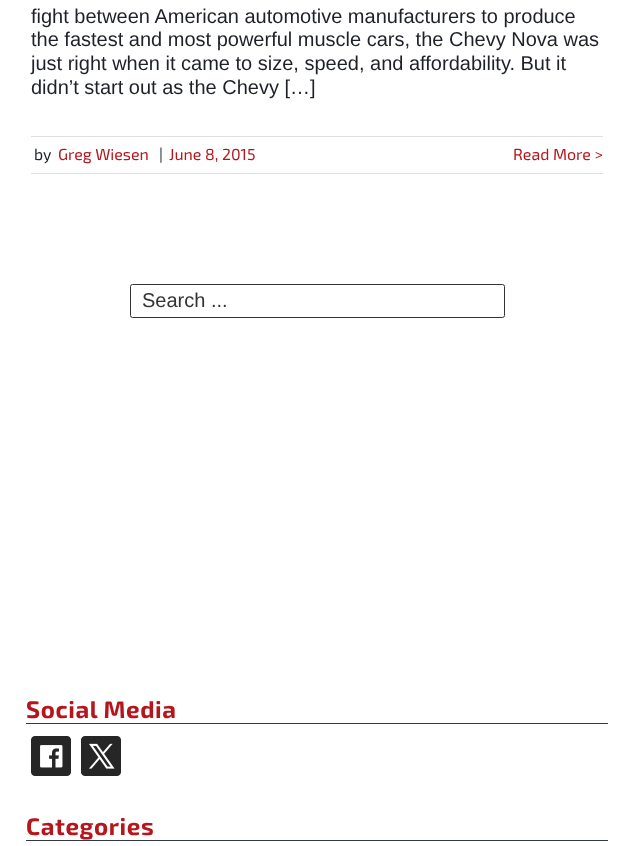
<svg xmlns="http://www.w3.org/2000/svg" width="633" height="846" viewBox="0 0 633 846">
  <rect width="100%" height="100%" fill="#fff"/>
  <path d="M31 136h572v1H31z" fill="#e0dede"/>
  <path d="M31 173h572v1H31z" fill="#e0dede"/>
  <rect x="130.5" y="284.5" width="374" height="33" rx="2" fill="none" stroke="#333"/>
  <path d="M26 723h582v1H26z" fill="#323943"/>
  <image x="31" y="736" width="40" height="40" href="img/1.png"/>
  <image x="81" y="736" width="40" height="40" href="img/2.png"/>
  <path d="M26 840h582v1H26z" fill="#323943"/>
  <g font-family="Liberation Sans" font-size="20" fill="#1e2228">
    <text x="31" y="23">fight between American automotive manufacturers to produce</text>
    <text x="31" y="46">the fastest and most powerful muscle cars, the Chevy Nova was</text>
    <text x="31" y="70">just right when it came to size, speed, and affordability. But it</text>
    <text x="31" y="94">didn’t start out as the Chevy […]</text>
  </g>
  <text x="34" y="160" font-family="'Exo 2'" font-size="16" fill="#1e2228">by</text>
  <text x="58" y="160" font-family="'Exo 2'" font-size="16" fill="#b6151c">Greg Wiesen</text>
  <text x="159" y="160" font-family="'Exo 2'" font-size="16" fill="#1e2228">|</text>
  <g font-family="'Exo 2'" font-size="16" fill="#b6151c">
    <text x="169" y="160">June 8, 2015</text>
    <text x="513" y="160">Read More &gt;</text>
  </g>
  <text x="142" y="307" font-family="Liberation Sans" font-size="20" fill="#333">Search ...</text>
  <g font-family="'Exo 2'" font-size="24" font-weight="bold" letter-spacing="0.6" fill="#b6151c">
    <text x="26" y="718">Social Media</text>
    <text x="26" y="835">Categories</text>
  </g>
</svg>
